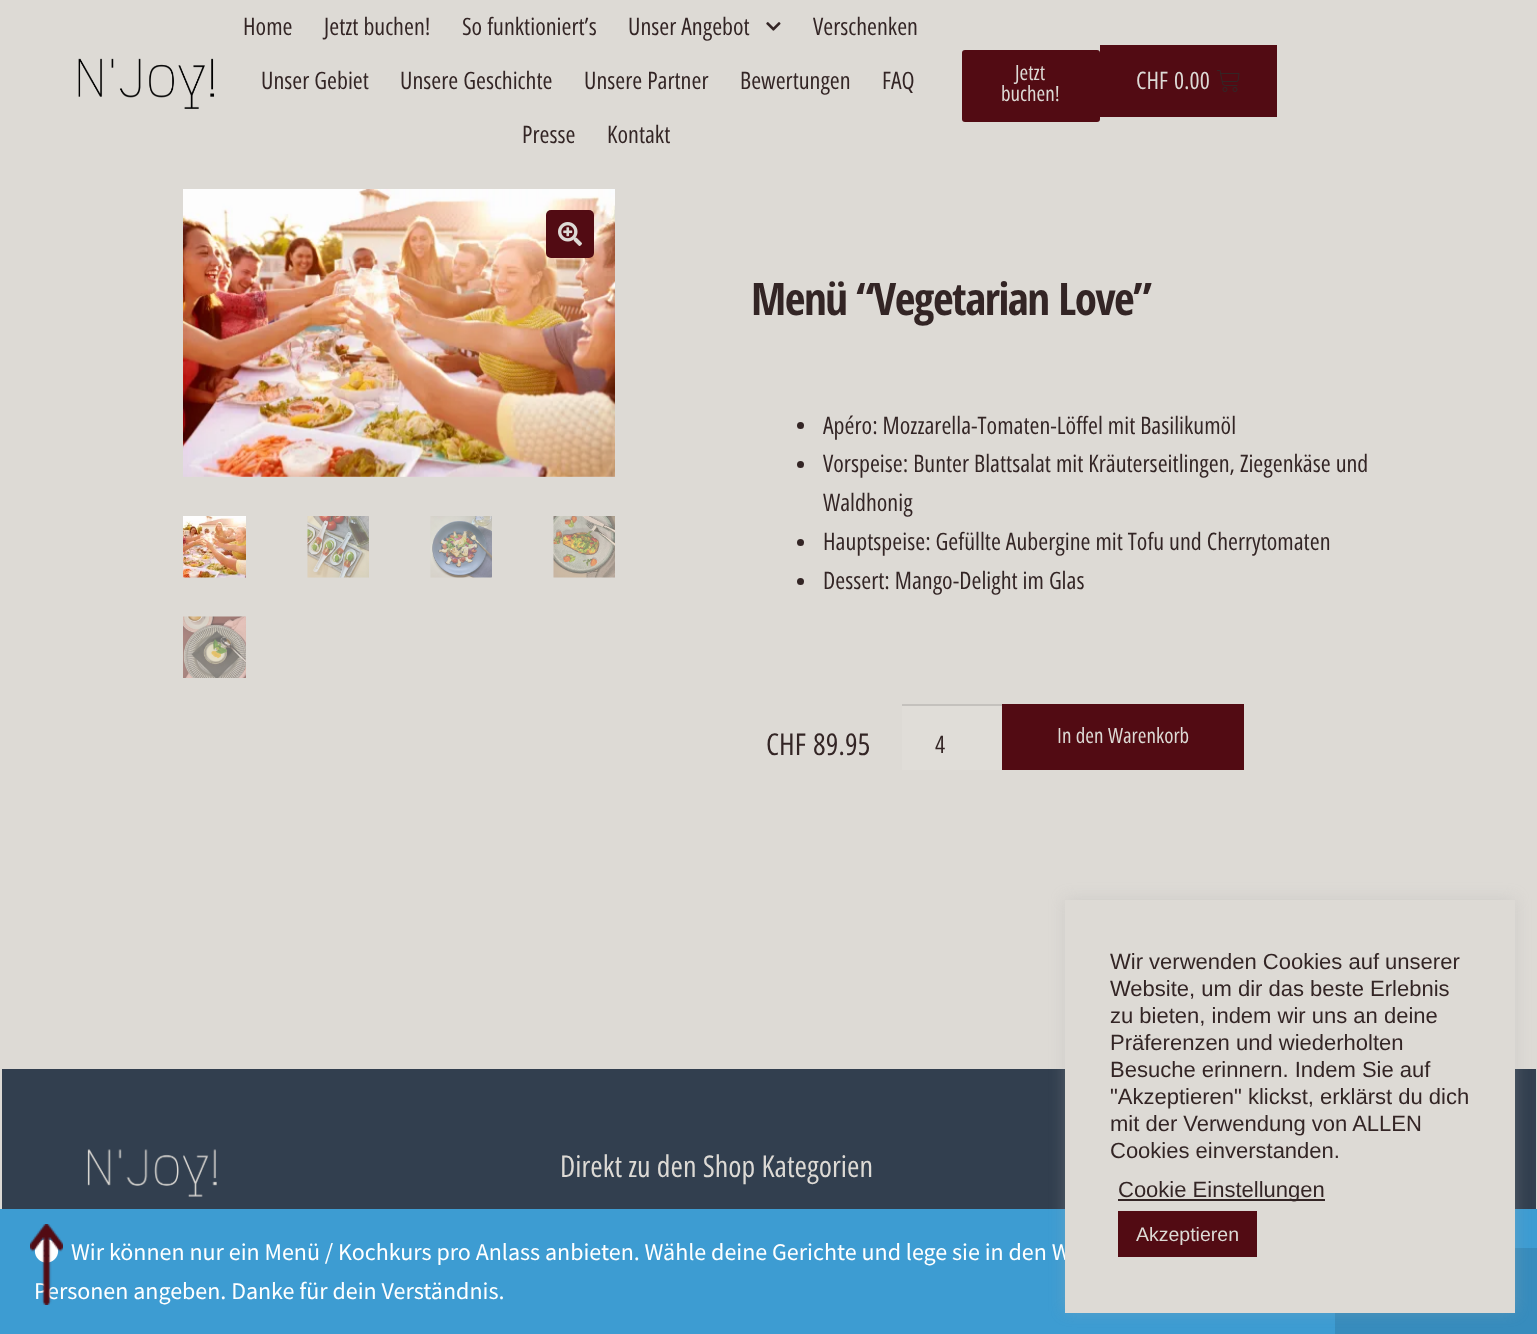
<svg xmlns="http://www.w3.org/2000/svg" width="1537" height="1334" viewBox="0 0 1537 1334">
  <rect width="100%" height="100%" fill="#dddad5"/>
  <image x="78" y="58" width="137" height="51" href="img/1.png"/>
  <image x="766" y="22" width="15" height="9" href="img/2.png"/>
  <rect x="962" y="50" width="138" height="72" rx="3" fill="#520b13"/>
  <path d="M1100 45h177v72H1100z" fill="#520b13"/>
  <image x="1217" y="70" width="23" height="22" href="img/3.png"/>
  <image x="183" y="189" width="432" height="288" href="img/4.png"/>
  <rect x="546" y="210" width="48" height="48" rx="5" fill="#520b13"/>
  <image x="558" y="222" width="24" height="24" href="img/5.png"/>
  <image x="183" y="516" width="63" height="62" href="img/6.png"/>
  <image x="307" y="516" width="62" height="62" href="img/7.png"/>
  <image x="430" y="516" width="62" height="62" href="img/8.png"/>
  <image x="553" y="516" width="62" height="62" href="img/9.png"/>
  <image x="183" y="616" width="63" height="62" href="img/10.png"/>
  <circle cx="800.5" cy="425.5" r="3.5" fill="#332525"/>
  <circle cx="800.5" cy="464.5" r="3.5" fill="#332525"/>
  <circle cx="800.5" cy="542.5" r="3.5" fill="#332525"/>
  <circle cx="800.5" cy="581.5" r="3.5" fill="#332525"/>
  <path d="M902 706h100v64H902z" fill="#e0ddd8"/>
  <path d="M902 704h100v2H902z" fill="#c4c1bd"/>
  <path d="M1002 704h242v66H1002z" fill="#520b13"/>
  <path d="M2 1069h1534v140H2z" fill="#323f4f"/>
  <image x="87" y="1149" width="130" height="48" href="img/11.png"/>
  <path d="M0 1209h1537v125H0z" fill="#3d9cd2"/>
  <path d="M1335 1248h202v86H1335z" fill="#378cbd"/>
  <path d="M1065 899h450v412H1065z" fill="#acabab4d" filter="blur(7.5px)"/>
  <image x="34" y="1239" width="25" height="24" href="img/13.png"/>
  <g font-family="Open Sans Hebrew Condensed" font-size="24" fill="#332525">
    <text x="243" y="35">Home</text>
    <text x="324" y="35">Jetzt buchen!</text>
    <text x="462" y="35">So funktioniert’s</text>
    <text x="628" y="35">Unser Angebot</text>
    <text x="813" y="35">Verschenken</text>
    <text x="261" y="89">Unser Gebiet</text>
    <text x="400" y="89">Unsere Geschichte</text>
    <text x="584" y="89">Unsere Partner</text>
    <text x="740" y="89">Bewertungen</text>
    <text x="882" y="89">FAQ</text>
    <text x="522" y="143">Presse</text>
    <text x="607" y="143">Kontakt</text>
  </g>
  <g font-family="Open Sans Hebrew Condensed" font-size="21" fill="#dddad5">
    <text x="1015" y="80">Jetzt</text>
    <text x="1001" y="101">buchen!</text>
  </g>
  <g font-family="Open Sans Hebrew Condensed" font-size="24" fill="#dddad5">
    <text x="1136" y="89">CHF</text>
    <text x="1174" y="89">0.00</text>
  </g>
  <text x="751" y="315" font-family="Open Sans Hebrew Condensed" font-size="45" font-weight="bold" letter-spacing="-1.5" fill="#332525">Menü “Vegetarian Love”</text>
  <g font-family="Open Sans Hebrew Condensed" font-size="24" fill="#332525">
    <text x="823" y="434">Apéro: Mozzarella-Tomaten-Löffel mit Basilikumöl</text>
    <text x="823" y="472">Vorspeise: Bunter Blattsalat mit Kräuterseitlingen, Ziegenkäse und</text>
    <text x="823" y="511">Waldhonig</text>
    <text x="823" y="550">Hauptspeise: Gefüllte Aubergine mit Tofu und Cherrytomaten</text>
    <text x="823" y="589">Dessert: Mango-Delight im Glas</text>
  </g>
  <g font-family="Open Sans Hebrew Condensed" font-size="30" fill="#332525">
    <text x="766" y="755">CHF</text>
    <text x="813" y="755">89.95</text>
  </g>
  <text x="935" y="753" font-family="Open Sans Hebrew Condensed" font-size="24" letter-spacing="2" fill="#332525">4</text>
  <text x="1057" y="743" font-family="Open Sans Hebrew Condensed" font-size="21" fill="#dddad5">In den Warenkorb</text>
  <text x="560" y="1177" font-family="Open Sans Hebrew Condensed" font-size="30" fill="#dddad5">Direkt zu den Shop Kategorien</text>
  <text x="71" y="1260" font-family="Source Sans Pro" font-size="24" fill="#fff">Wir können nur ein Menü / Kochkurs pro Anlass anbieten. Wähle deine Gerichte und lege sie in den W</text>
  <path d="M1065 900h450v413H1065z" fill="#dddad5"/>
  <path d="M1118 1211h139v46H1118z" fill="#520b13"/>
  <text x="1136" y="1241" font-family="Liberation Sans" font-size="19.5" fill="#dddad5">Akzeptieren</text>
  <path d="M1118 1199h207v2H1118z" fill="#332525"/>
  <g font-family="Liberation Sans" font-size="22" fill="#332525">
    <text x="1118" y="1197">Cookie Einstellungen</text>
    <text x="1110" y="1158">Cookies einverstanden.</text>
    <text x="1110" y="1131">mit der Verwendung von ALLEN</text>
    <text x="1110" y="1104">"Akzeptieren" klickst, erklärst du dich</text>
    <text x="1110" y="1077">Besuche erinnern. Indem Sie auf</text>
    <text x="1110" y="1050">Präferenzen und wiederholten</text>
    <text x="1110" y="1023">zu bieten, indem wir uns an deine</text>
    <text x="1110" y="996">Website, um dir das beste Erlebnis</text>
    <text x="1110" y="969">Wir verwenden Cookies auf unserer</text>
  </g>
  <text x="34" y="1299" font-family="Source Sans Pro" font-size="24" fill="#fff">Personen angeben. Danke für dein Verständnis.</text>
  <image x="30" y="1224" width="33" height="81" href="img/12.png"/>
</svg>
